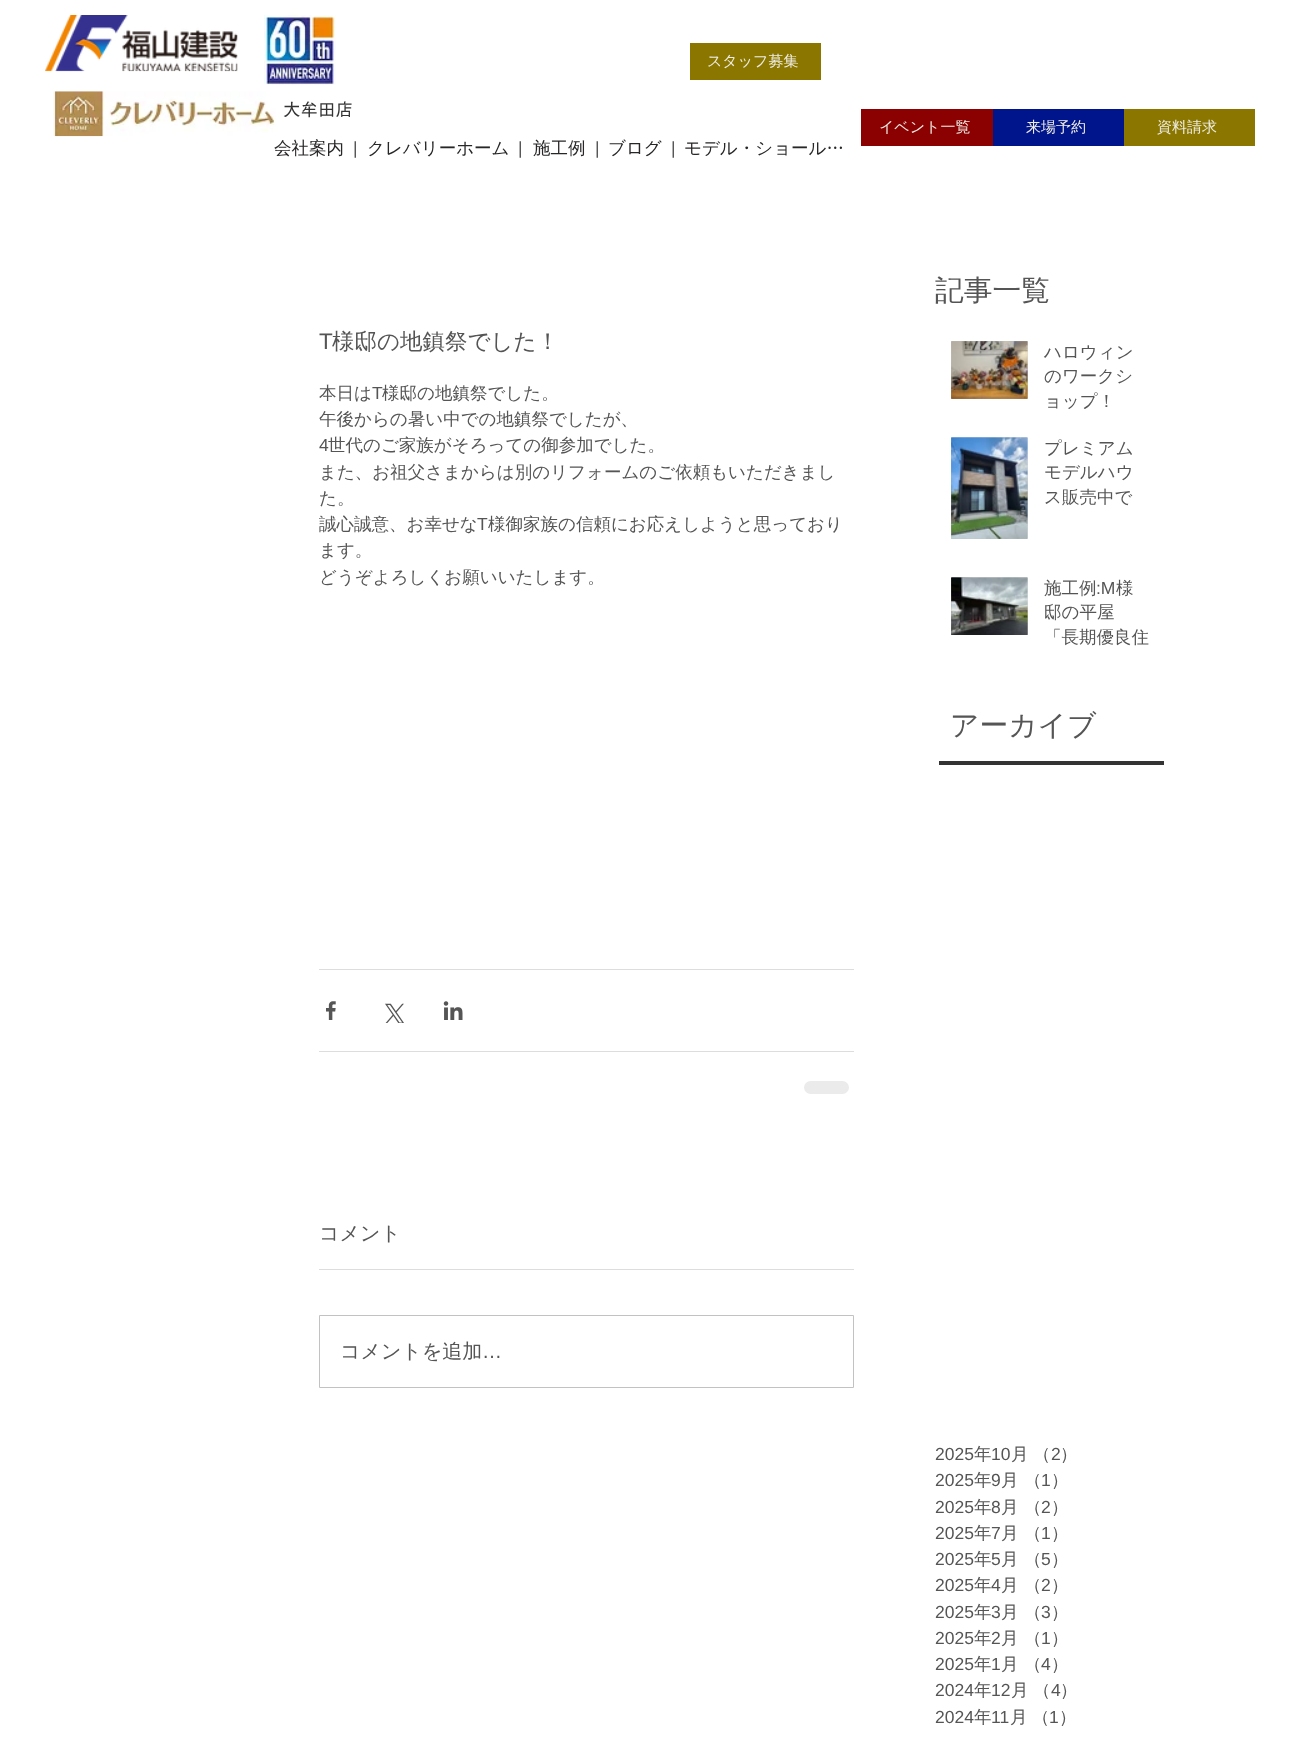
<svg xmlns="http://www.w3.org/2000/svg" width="1292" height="1742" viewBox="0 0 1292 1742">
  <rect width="100%" height="100%" fill="#fff"/>
  <image x="45" y="15" width="193" height="57" href="img/1.png"/>
  <image x="264" y="15" width="72" height="70" href="img/2.png"/>
  <path d="M690 43h131v37H690z" fill="#8b7700"/>
  <image x="53" y="91" width="223" height="46" href="img/3.png"/>
  <path d="M861 109h132v37H861z" fill="#8b0000"/>
  <path d="M993 109h131v37H993z" fill="#00148b"/>
  <path d="M1124 109h131v37H1124z" fill="#8b7700"/>
  <path d="M319 969h535v1H319z" fill="#ddd"/>
  <image x="326" y="1001" width="10" height="19" href="img/4.png"/>
  <image x="385" y="1003" width="19" height="20" href="img/5.png"/>
  <image x="443" y="1001" width="20" height="19" href="img/6.png"/>
  <path d="M319 1051h535v1H319z" fill="#ddd"/>
  <rect x="804" y="1081" width="45" height="13" rx="6.5" fill="#ebebeb"/>
  <path d="M319 1269h535v1H319z" fill="#ddd"/>
  <path d="M319.5 1315.5h534v72H319.5z" fill="none" stroke="#c2c2c2"/>
  <image x="951" y="341" width="77" height="58" href="img/7.png"/>
  <image x="951" y="341" width="77" height="58" href="img/8.png"/>
  <image x="951" y="437" width="77" height="102" href="img/9.png"/>
  <image x="951" y="437" width="77" height="102" href="img/10.png"/>
  <image x="951" y="577" width="77" height="58" href="img/11.png"/>
  <image x="951" y="577" width="77" height="58" href="img/12.png"/>
  <path d="M939 761h225v4H939z" fill="#333"/>
  <text x="707" y="66" font-family="WenQuanYi Zen Hei" font-size="15" font-weight="500" fill="#eeece4">スタッフ募集</text>
  <text x="283" y="116" font-family="'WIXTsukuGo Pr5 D'" font-size="17.5" font-weight="600" fill="#333">大牟田店</text>
  <g font-family="WenQuanYi Zen Hei" font-size="15" font-weight="500" fill="#eeece4">
    <text x="879" y="132">イベント一覧</text>
    <text x="1026" y="132">来場予約</text>
    <text x="1157" y="132">資料請求</text>
  </g>
  <text x="274" y="154" font-family="WenQuanYi Zen Hei" font-size="17.5" font-weight="500" fill="#282626">会社案内</text>
  <text x="353" y="154" font-family="Liberation Sans" font-size="17.5" fill="#555">|</text>
  <text x="367" y="154" font-family="WenQuanYi Zen Hei" font-size="17.5" font-weight="500" fill="#282626">クレバリーホーム</text>
  <text x="518" y="154" font-family="Liberation Sans" font-size="17.5" fill="#555">|</text>
  <text x="533" y="154" font-family="WenQuanYi Zen Hei" font-size="17.5" font-weight="500" fill="#282626">施工例</text>
  <text x="595" y="154" font-family="Liberation Sans" font-size="17.5" fill="#555">|</text>
  <text x="608" y="154" font-family="WenQuanYi Zen Hei" font-size="17.5" font-weight="500" fill="#282626">ブログ</text>
  <text x="671" y="154" font-family="Liberation Sans" font-size="17.5" fill="#555">|</text>
  <text x="684" y="154" font-family="WenQuanYi Zen Hei" font-size="17.5" font-weight="500" fill="#282626">モデル・ショール…</text>
  <text x="935" y="300" font-family="WenQuanYi Zen Hei" font-size="28.75" font-weight="500" fill="#555">記事一覧</text>
  <text x="319" y="349" font-family="Liberation Sans" font-size="22.5" fill="#555">T</text>
  <text x="332" y="349" font-family="WenQuanYi Zen Hei" font-size="22.5" font-weight="500" fill="#555">様邸の地鎮祭でした！</text>
  <text x="319" y="399" font-family="WenQuanYi Zen Hei" font-size="17.5" font-weight="500" fill="#555">本日は</text>
  <text x="372" y="399" font-family="Liberation Sans" font-size="17.5" fill="#555">T</text>
  <g font-family="WenQuanYi Zen Hei" font-size="17.5" font-weight="500" fill="#555">
    <text x="382" y="399">様邸の地鎮祭でした。</text>
    <text x="319" y="425">午後からの暑い中での地鎮祭でしたが、</text>
  </g>
  <text x="319" y="451" font-family="Liberation Sans" font-size="17.5" fill="#555">4</text>
  <g font-family="WenQuanYi Zen Hei" font-size="17.5" font-weight="500" fill="#555">
    <text x="328" y="451">世代のご家族がそろっての御参加でした。</text>
    <text x="319" y="478">また、お祖父さまからは別のリフォームのご依頼もいただきまし</text>
    <text x="319" y="504">た。</text>
    <text x="319" y="530">誠心誠意、お幸せな</text>
  </g>
  <text x="477" y="530" font-family="Liberation Sans" font-size="17.5" fill="#555">T</text>
  <g font-family="WenQuanYi Zen Hei" font-size="17.5" font-weight="500" fill="#555">
    <text x="488" y="530">様御家族の信頼にお応えしようと思っており</text>
    <text x="319" y="556">ます。</text>
    <text x="319" y="583">どうぞよろしくお願いいたします。</text>
  </g>
  <g font-family="WenQuanYi Zen Hei" font-size="20" font-weight="500" fill="#555">
    <text x="319" y="1240">コメント</text>
    <text x="340" y="1358">コメントを追加</text>
  </g>
  <text x="482" y="1358" font-family="Liberation Sans" font-size="20" fill="#555">…</text>
  <g font-family="WenQuanYi Zen Hei" font-size="17.5" font-weight="500" fill="#555">
    <text x="1044" y="358">ハロウィン</text>
    <text x="1044" y="382">のワークシ</text>
    <text x="1044" y="407">ョップ！</text>
    <text x="1044" y="454">プレミアム</text>
    <text x="1044" y="478">モデルハウ</text>
    <text x="1044" y="503">ス販売中で</text>
    <text x="1044" y="594">施工例</text>
  </g>
  <text x="1096" y="594" font-family="Liberation Sans" font-size="17.5" fill="#555">:M</text>
  <g font-family="WenQuanYi Zen Hei" font-size="17.5" font-weight="500" fill="#555">
    <text x="1116" y="594">様</text>
    <text x="1044" y="618">邸の平屋</text>
    <text x="1044" y="643">「長期優良住</text>
  </g>
  <text x="950" y="735" font-family="WenQuanYi Zen Hei" font-size="28.75" font-weight="500" fill="#555">アーカイブ</text>
  <text x="935" y="1460" font-family="Liberation Sans" font-size="17.5" fill="#555">2025</text>
  <text x="974" y="1460" font-family="WenQuanYi Zen Hei" font-size="17.5" font-weight="500" fill="#555">年</text>
  <text x="991" y="1460" font-family="Liberation Sans" font-size="17.5" fill="#555">10</text>
  <g font-family="WenQuanYi Zen Hei" font-size="17.5" font-weight="500" fill="#555">
    <text x="1011" y="1460">月</text>
    <text x="1033" y="1460">（</text>
  </g>
  <text x="1051" y="1460" font-family="Liberation Sans" font-size="17.5" fill="#555">2</text>
  <text x="1060" y="1460" font-family="WenQuanYi Zen Hei" font-size="17.5" font-weight="500" fill="#555">）</text>
  <text x="935" y="1486" font-family="Liberation Sans" font-size="17.5" fill="#555">2025</text>
  <text x="974" y="1486" font-family="WenQuanYi Zen Hei" font-size="17.5" font-weight="500" fill="#555">年</text>
  <text x="991" y="1486" font-family="Liberation Sans" font-size="17.5" fill="#555">9</text>
  <g font-family="WenQuanYi Zen Hei" font-size="17.5" font-weight="500" fill="#555">
    <text x="1001" y="1486">月</text>
    <text x="1024" y="1486">（</text>
  </g>
  <text x="1041" y="1486" font-family="Liberation Sans" font-size="17.5" fill="#555">1</text>
  <text x="1051" y="1486" font-family="WenQuanYi Zen Hei" font-size="17.5" font-weight="500" fill="#555">）</text>
  <text x="935" y="1513" font-family="Liberation Sans" font-size="17.5" fill="#555">2025</text>
  <text x="974" y="1513" font-family="WenQuanYi Zen Hei" font-size="17.5" font-weight="500" fill="#555">年</text>
  <text x="991" y="1513" font-family="Liberation Sans" font-size="17.5" fill="#555">8</text>
  <g font-family="WenQuanYi Zen Hei" font-size="17.5" font-weight="500" fill="#555">
    <text x="1001" y="1513">月</text>
    <text x="1024" y="1513">（</text>
  </g>
  <text x="1041" y="1513" font-family="Liberation Sans" font-size="17.5" fill="#555">2</text>
  <text x="1051" y="1513" font-family="WenQuanYi Zen Hei" font-size="17.5" font-weight="500" fill="#555">）</text>
  <text x="935" y="1539" font-family="Liberation Sans" font-size="17.5" fill="#555">2025</text>
  <text x="974" y="1539" font-family="WenQuanYi Zen Hei" font-size="17.5" font-weight="500" fill="#555">年</text>
  <text x="991" y="1539" font-family="Liberation Sans" font-size="17.5" fill="#555">7</text>
  <g font-family="WenQuanYi Zen Hei" font-size="17.5" font-weight="500" fill="#555">
    <text x="1001" y="1539">月</text>
    <text x="1024" y="1539">（</text>
  </g>
  <text x="1041" y="1539" font-family="Liberation Sans" font-size="17.5" fill="#555">1</text>
  <text x="1051" y="1539" font-family="WenQuanYi Zen Hei" font-size="17.5" font-weight="500" fill="#555">）</text>
  <text x="935" y="1565" font-family="Liberation Sans" font-size="17.5" fill="#555">2025</text>
  <text x="974" y="1565" font-family="WenQuanYi Zen Hei" font-size="17.5" font-weight="500" fill="#555">年</text>
  <text x="991" y="1565" font-family="Liberation Sans" font-size="17.5" fill="#555">5</text>
  <g font-family="WenQuanYi Zen Hei" font-size="17.5" font-weight="500" fill="#555">
    <text x="1001" y="1565">月</text>
    <text x="1024" y="1565">（</text>
  </g>
  <text x="1041" y="1565" font-family="Liberation Sans" font-size="17.5" fill="#555">5</text>
  <text x="1051" y="1565" font-family="WenQuanYi Zen Hei" font-size="17.5" font-weight="500" fill="#555">）</text>
  <text x="935" y="1591" font-family="Liberation Sans" font-size="17.5" fill="#555">2025</text>
  <text x="974" y="1591" font-family="WenQuanYi Zen Hei" font-size="17.5" font-weight="500" fill="#555">年</text>
  <text x="991" y="1591" font-family="Liberation Sans" font-size="17.5" fill="#555">4</text>
  <g font-family="WenQuanYi Zen Hei" font-size="17.5" font-weight="500" fill="#555">
    <text x="1001" y="1591">月</text>
    <text x="1024" y="1591">（</text>
  </g>
  <text x="1041" y="1591" font-family="Liberation Sans" font-size="17.5" fill="#555">2</text>
  <text x="1051" y="1591" font-family="WenQuanYi Zen Hei" font-size="17.5" font-weight="500" fill="#555">）</text>
  <text x="935" y="1618" font-family="Liberation Sans" font-size="17.5" fill="#555">2025</text>
  <text x="974" y="1618" font-family="WenQuanYi Zen Hei" font-size="17.5" font-weight="500" fill="#555">年</text>
  <text x="991" y="1618" font-family="Liberation Sans" font-size="17.5" fill="#555">3</text>
  <g font-family="WenQuanYi Zen Hei" font-size="17.5" font-weight="500" fill="#555">
    <text x="1001" y="1618">月</text>
    <text x="1024" y="1618">（</text>
  </g>
  <text x="1041" y="1618" font-family="Liberation Sans" font-size="17.5" fill="#555">3</text>
  <text x="1051" y="1618" font-family="WenQuanYi Zen Hei" font-size="17.5" font-weight="500" fill="#555">）</text>
  <text x="935" y="1644" font-family="Liberation Sans" font-size="17.5" fill="#555">2025</text>
  <text x="974" y="1644" font-family="WenQuanYi Zen Hei" font-size="17.5" font-weight="500" fill="#555">年</text>
  <text x="991" y="1644" font-family="Liberation Sans" font-size="17.5" fill="#555">2</text>
  <g font-family="WenQuanYi Zen Hei" font-size="17.5" font-weight="500" fill="#555">
    <text x="1001" y="1644">月</text>
    <text x="1024" y="1644">（</text>
  </g>
  <text x="1041" y="1644" font-family="Liberation Sans" font-size="17.5" fill="#555">1</text>
  <text x="1051" y="1644" font-family="WenQuanYi Zen Hei" font-size="17.5" font-weight="500" fill="#555">）</text>
  <text x="935" y="1670" font-family="Liberation Sans" font-size="17.5" fill="#555">2025</text>
  <text x="974" y="1670" font-family="WenQuanYi Zen Hei" font-size="17.5" font-weight="500" fill="#555">年</text>
  <text x="991" y="1670" font-family="Liberation Sans" font-size="17.5" fill="#555">1</text>
  <g font-family="WenQuanYi Zen Hei" font-size="17.5" font-weight="500" fill="#555">
    <text x="1001" y="1670">月</text>
    <text x="1024" y="1670">（</text>
  </g>
  <text x="1041" y="1670" font-family="Liberation Sans" font-size="17.5" fill="#555">4</text>
  <text x="1051" y="1670" font-family="WenQuanYi Zen Hei" font-size="17.5" font-weight="500" fill="#555">）</text>
  <text x="935" y="1696" font-family="Liberation Sans" font-size="17.5" fill="#555">2024</text>
  <text x="974" y="1696" font-family="WenQuanYi Zen Hei" font-size="17.5" font-weight="500" fill="#555">年</text>
  <text x="991" y="1696" font-family="Liberation Sans" font-size="17.5" fill="#555">12</text>
  <g font-family="WenQuanYi Zen Hei" font-size="17.5" font-weight="500" fill="#555">
    <text x="1011" y="1696">月</text>
    <text x="1033" y="1696">（</text>
  </g>
  <text x="1051" y="1696" font-family="Liberation Sans" font-size="17.5" fill="#555">4</text>
  <text x="1060" y="1696" font-family="WenQuanYi Zen Hei" font-size="17.5" font-weight="500" fill="#555">）</text>
  <text x="935" y="1723" font-family="Liberation Sans" font-size="17.5" fill="#555">2024</text>
  <text x="974" y="1723" font-family="WenQuanYi Zen Hei" font-size="17.5" font-weight="500" fill="#555">年</text>
  <text x="991" y="1723" font-family="Liberation Sans" font-size="17.5" fill="#555">11</text>
  <g font-family="WenQuanYi Zen Hei" font-size="17.5" font-weight="500" fill="#555">
    <text x="1010" y="1723">月</text>
    <text x="1032" y="1723">（</text>
  </g>
  <text x="1049" y="1723" font-family="Liberation Sans" font-size="17.5" fill="#555">1</text>
  <text x="1059" y="1723" font-family="WenQuanYi Zen Hei" font-size="17.5" font-weight="500" fill="#555">）</text>
</svg>
